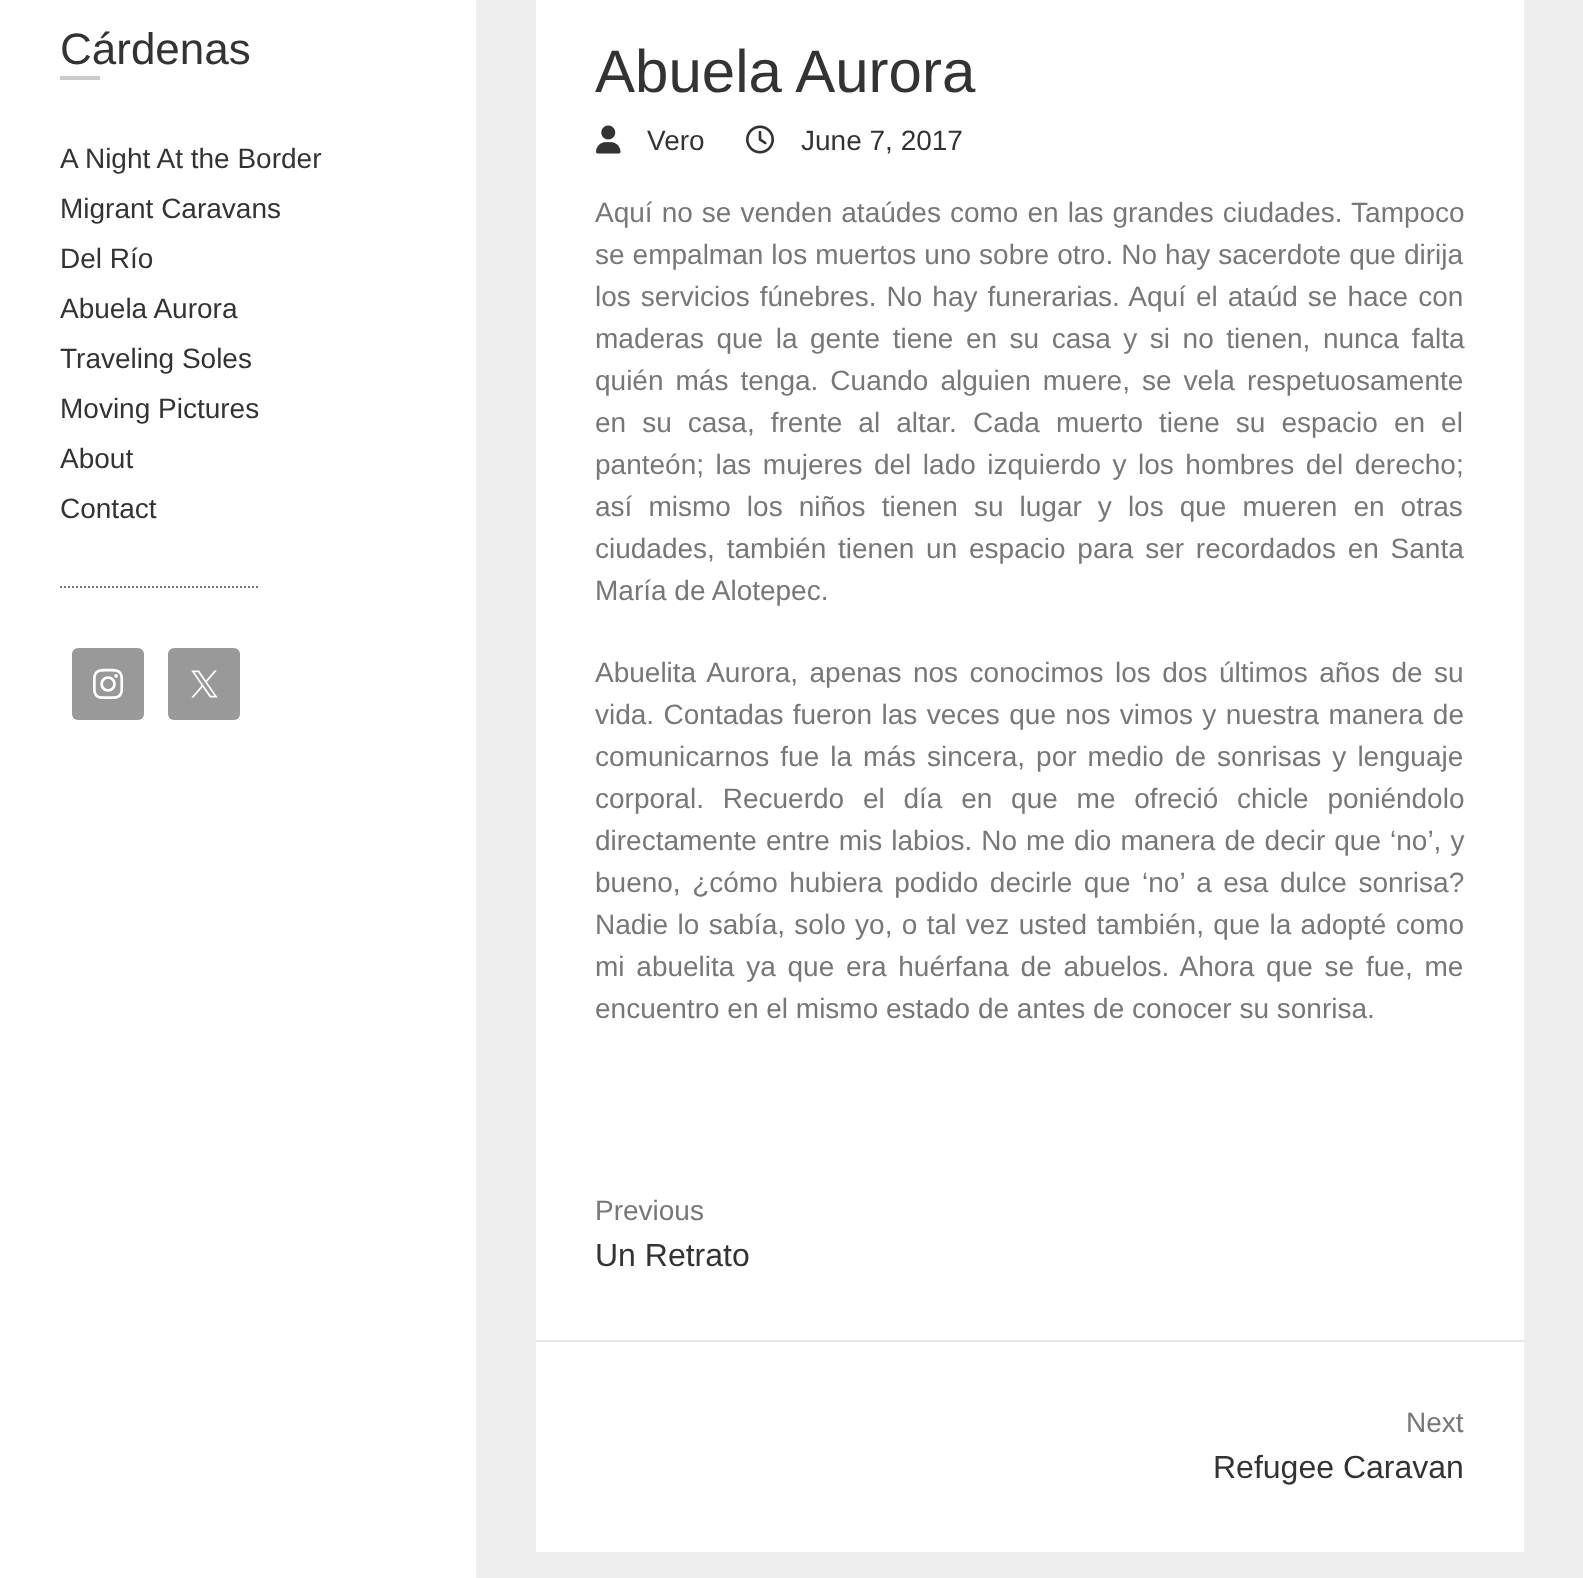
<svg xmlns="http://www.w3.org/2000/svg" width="1583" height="1578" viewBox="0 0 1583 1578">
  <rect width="100%" height="100%" fill="#eee"/>
  <path d="M0 0h476v1578H0z" fill="#fff"/>
  <path d="M60 76h40v4H60z" fill="#ccc"/>
  <path d="M60 587H260" fill="none" stroke="#777" stroke-width="2" stroke-dasharray="2 2"/>
  <path d="M536 0h988v1552H536z" fill="#fff"/>
  <image x="596" y="125" width="25" height="29" href="img/1.png"/>
  <image x="746" y="125" width="28" height="29" href="img/2.png"/>
  <path d="M536 1340h988v2H536z" fill="#e6e6e6"/>
  <rect x="72" y="648" width="72" height="72" rx="6" fill="#999"/>
  <image x="93" y="668" width="31" height="31" href="img/3.png"/>
  <rect x="168" y="648" width="72" height="72" rx="6" fill="#999"/>
  <image x="191" y="670" width="27" height="28" href="img/4.png"/>
  <text x="60" y="64" font-family="Liberation Sans" font-size="44" fill="#333">Cárdenas</text>
  <g font-family="Liberation Sans" font-size="28" fill="#333">
    <text x="60" y="168">A Night At the Border</text>
    <text x="60" y="218">Migrant Caravans</text>
    <text x="60" y="268">Del Río</text>
    <text x="60" y="318">Abuela Aurora</text>
    <text x="60" y="368">Traveling Soles</text>
    <text x="60" y="418">Moving Pictures</text>
    <text x="60" y="468">About</text>
    <text x="60" y="518">Contact</text>
  </g>
  <text x="595" y="92" font-family="Liberation Sans" font-size="60" fill="#333">Abuela Aurora</text>
  <g font-family="Liberation Sans" font-size="28" fill="#333">
    <text x="647" y="150">Vero</text>
    <text x="801" y="150">June 7, 2017</text>
  </g>
  <g font-family="Liberation Sans" font-size="28" fill="#777">
    <text x="595" y="222" word-spacing="1.25">Aquí no se venden ataúdes como en las grandes ciudades. Tampoco</text>
    <text x="595" y="264" word-spacing="0.25">se empalman los muertos uno sobre otro. No hay sacerdote que dirija</text>
    <text x="595" y="306" word-spacing="2.25">los servicios fúnebres. No hay funerarias. Aquí el ataúd se hace con</text>
    <text x="595" y="348" word-spacing="4.75">maderas que la gente tiene en su casa y si no tienen, nunca falta</text>
    <text x="595" y="390" word-spacing="4.25">quién más tenga. Cuando alguien muere, se vela respetuosamente</text>
    <text x="595" y="432" word-spacing="8.25">en su casa, frente al altar. Cada muerto tiene su espacio en el</text>
    <text x="595" y="474" word-spacing="3.75">panteón; las mujeres del lado izquierdo y los hombres del derecho;</text>
    <text x="595" y="516" word-spacing="8.25">así mismo los niños tienen su lugar y los que mueren en otras</text>
    <text x="595" y="558" word-spacing="4">ciudades, también tienen un espacio para ser recordados en Santa</text>
    <text x="595" y="600">María de Alotepec.</text>
    <text x="595" y="682" word-spacing="3.75">Abuelita Aurora, apenas nos conocimos los dos últimos años de su</text>
    <text x="595" y="724" word-spacing="1.6">vida. Contadas fueron las veces que nos vimos y nuestra manera de</text>
    <text x="595" y="766" word-spacing="3.25">comunicarnos fue la más sincera, por medio de sonrisas y lenguaje</text>
    <text x="595" y="808" word-spacing="11">corporal. Recuerdo el día en que me ofreció chicle poniéndolo</text>
    <text x="595" y="850" word-spacing="1.25">directamente entre mis labios. No me dio manera de decir que ‘no’, y</text>
    <text x="595" y="892" word-spacing="3.75">bueno, ¿cómo hubiera podido decirle que ‘no’ a esa dulce sonrisa?</text>
    <text x="595" y="934" word-spacing="1.6">Nadie lo sabía, solo yo, o tal vez usted también, que la adopté como</text>
    <text x="595" y="976" word-spacing="4">mi abuelita ya que era huérfana de abuelos. Ahora que se fue, me</text>
    <text x="595" y="1018">encuentro en el mismo estado de antes de conocer su sonrisa.</text>
    <text x="595" y="1220">Previous</text>
  </g>
  <text x="595" y="1266" font-family="Liberation Sans" font-size="32" fill="#333">Un Retrato</text>
  <text x="1406" y="1432" font-family="Liberation Sans" font-size="28" fill="#777">Next</text>
  <text x="1213" y="1478" font-family="Liberation Sans" font-size="32" fill="#333">Refugee Caravan</text>
</svg>
